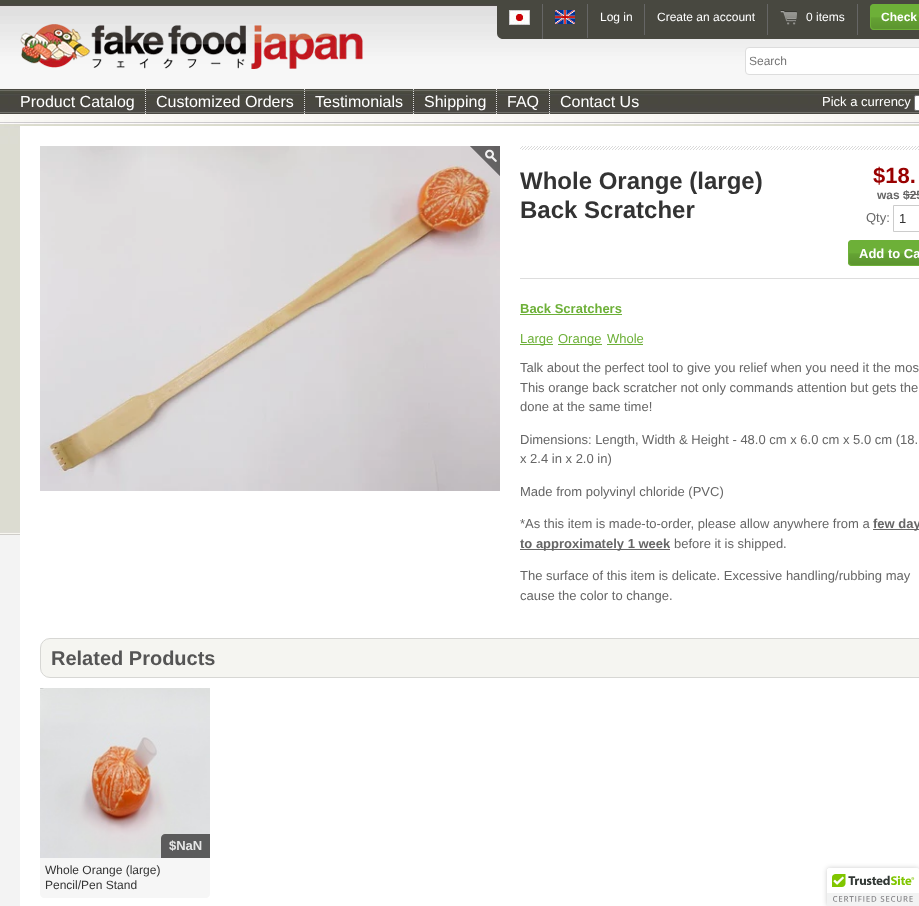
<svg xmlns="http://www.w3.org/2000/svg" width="919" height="906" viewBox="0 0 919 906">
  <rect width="100%" height="100%" fill="#f3f3f3"/>
  <image x="0" y="4" width="919" height="531" href="img/1.png"/>
  <path d="M0 0h919v4H0z" fill="#484840"/>
  <path d="M497 4H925V33C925 36.5 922.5 39 919 39H503C499.5 39 497 36.5 497 33Z" fill="#484840"/>
  <path d="M542 4h1v35H542z" fill="#666"/>
  <image x="509" y="10" width="21" height="15" href="img/2.png"/>
  <path d="M587 4h1v34H587z" fill="#666"/>
  <image x="555" y="10" width="20" height="14" href="img/3.png"/>
  <path d="M644 4h1v31H644z" fill="#666"/>
  <path d="M767 4h1v31H767z" fill="#666"/>
  <path d="M857 4h1v31H857z" fill="#666"/>
  <image x="780" y="10" width="17" height="15" href="img/4.png"/>
  <rect x="870" y="4" width="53" height="26" rx="4" fill="#6db038"/>
  <image x="870" y="17" width="49" height="12" href="img/5.png"/>
  <rect x="870.5" y="4.5" width="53" height="25" rx="3.5" fill="none" stroke="#6db038"/>
  <image x="20" y="24" width="343" height="45" href="img/6.png"/>
  <rect x="745.5" y="47.5" width="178" height="27" rx="3.5" fill="#fff" stroke="#ddd"/>
  <path d="M145.5 89V115" fill="none" stroke="#ddd" stroke-dasharray="1 1"/>
  <path d="M304.5 89V115" fill="none" stroke="#ddd" stroke-dasharray="1 1"/>
  <path d="M413.5 89V115" fill="none" stroke="#ddd" stroke-dasharray="1 1"/>
  <path d="M496.5 89V115" fill="none" stroke="#ddd" stroke-dasharray="1 1"/>
  <path d="M549.5 89V115" fill="none" stroke="#ddd" stroke-dasharray="1 1"/>
  <rect x="914.5" y="95.5" width="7" height="15" rx="1.5" fill="#fff" stroke="#767676"/>
  <path d="M20 126h899v780H20z" fill="#fff"/>
  <image x="40" y="146" width="460" height="345" href="img/7.png"/>
  <image x="470" y="146" width="30" height="30" href="img/8.png"/>
  <image x="520" y="146" width="399" height="4" href="img/9.png"/>
  <path d="M520 278h399v1H520z" fill="#ddd"/>
  <path d="M903 194h16v1H903z" fill="#666"/>
  <path d="M893.5 205.5h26v26H893.5z" fill="none" stroke="#ccc"/>
  <rect x="848" y="240" width="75" height="26" rx="4" fill="#6db038"/>
  <image x="848" y="253" width="71" height="12" href="img/10.png"/>
  <rect x="848.5" y="240.5" width="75" height="25" rx="3.5" fill="none" stroke="#6db038"/>
  <path d="M520 314h102v1H520z" fill="#6db038"/>
  <path d="M520 344h33v1H520z" fill="#6db038"/>
  <path d="M558 344h44v1H558z" fill="#6db038"/>
  <path d="M607 344h36v1H607z" fill="#6db038"/>
  <path d="M873 529h46v1H873z" fill="#666"/>
  <path d="M520 549h150v1H520z" fill="#666"/>
  <rect x="40.5" y="638.5" width="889" height="39" rx="9.5" fill="#f5f5f1" stroke="#d7d7d4"/>
  <image x="40" y="688" width="170" height="170" href="img/11.png"/>
  <path d="M165 834H210V858H161V838C161 836 163 834 165 834Z" fill="#444444d9"/>
  <path d="M40 858H210V894C210 896 208 898 206 898H44C42 898 40 896 40 894Z" fill="#f6f6f6"/>
  <rect x="827" y="868" width="92" height="38" rx="2" fill="#00000033" filter="blur(2.5px)"/>
  <path d="M829 868H919V906H827V870C827 869 828 868 829 868Z" fill="#fff"/>
  <image x="827" y="868" width="92" height="38" href="img/12.png"/>
  <g font-family="Liberation Sans" font-size="12" fill="#fff">
    <text x="600" y="21">Log in</text>
    <text x="657" y="21">Create an account</text>
    <text x="806" y="21">0 items</text>
  </g>
  <text x="881" y="21" font-family="Liberation Sans" font-size="12" font-weight="bold" fill="#fff">Check</text>
  <text x="749" y="65" font-family="Liberation Sans" font-size="12" fill="#757575">Search</text>
  <g font-family="Liberation Sans" font-size="16" fill="#fff">
    <text x="20" y="107">Product Catalog</text>
    <text x="156" y="107">Customized Orders</text>
    <text x="315" y="107">Testimonials</text>
    <text x="424" y="107">Shipping</text>
    <text x="507" y="107">FAQ</text>
    <text x="560" y="107">Contact Us</text>
  </g>
  <text x="822" y="106" font-family="Liberation Sans" font-size="13" fill="#fff">Pick a currency</text>
  <g font-family="Liberation Sans" font-size="24" font-weight="bold" fill="#333">
    <text x="520" y="189">Whole Orange (large)</text>
    <text x="520" y="218">Back Scratcher</text>
  </g>
  <text x="873" y="183" font-family="Liberation Sans" font-size="22" font-weight="bold" fill="#900">$18.</text>
  <text x="877" y="199" font-family="Liberation Sans" font-size="12" font-weight="bold" fill="#666">was $25</text>
  <text x="866" y="222" font-family="Liberation Sans" font-size="13" fill="#666">Qty:</text>
  <text x="899" y="223" font-family="Liberation Sans" font-size="13" fill="#333">1</text>
  <text x="859" y="258" font-family="Liberation Sans" font-size="13" font-weight="bold" fill="#fff">Add to Ca</text>
  <text x="520" y="313" font-family="Liberation Sans" font-size="13" font-weight="bold" fill="#6db038">Back Scratchers</text>
  <g font-family="Liberation Sans" font-size="13" fill="#6db038">
    <text x="520" y="343">Large</text>
    <text x="558" y="343">Orange</text>
    <text x="607" y="343">Whole</text>
  </g>
  <g font-family="Liberation Sans" font-size="13" fill="#666">
    <text x="520" y="372">Talk about the perfect tool to give you relief when you need it the mos</text>
    <text x="520" y="392">This orange back scratcher not only commands attention but gets the</text>
    <text x="520" y="411">done at the same time!</text>
    <text x="520" y="444">Dimensions: Length, Width &amp; Height - 48.0 cm x 6.0 cm x 5.0 cm (18.</text>
    <text x="520" y="463">x 2.4 in x 2.0 in)</text>
    <text x="520" y="496">Made from polyvinyl chloride (PVC)</text>
    <text x="520" y="528">*As this item is made-to-order, please allow anywhere from a</text>
  </g>
  <g font-family="Liberation Sans" font-size="13" font-weight="bold" fill="#666">
    <text x="873" y="528">few day</text>
    <text x="520" y="548">to approximately 1 week</text>
  </g>
  <g font-family="Liberation Sans" font-size="13" fill="#666">
    <text x="674" y="548">before it is shipped.</text>
    <text x="520" y="580">The surface of this item is delicate. Excessive handling/rubbing may</text>
    <text x="520" y="600">cause the color to change.</text>
  </g>
  <text x="51" y="665" font-family="Liberation Sans" font-size="20" font-weight="bold" fill="#555">Related Products</text>
  <text x="169" y="850" font-family="Liberation Sans" font-size="13" font-weight="bold" fill="#e6e6e6">$NaN</text>
  <g font-family="Liberation Sans" font-size="12" fill="#333">
    <text x="45" y="874">Whole Orange (large)</text>
    <text x="45" y="889">Pencil/Pen Stand</text>
  </g>
</svg>
